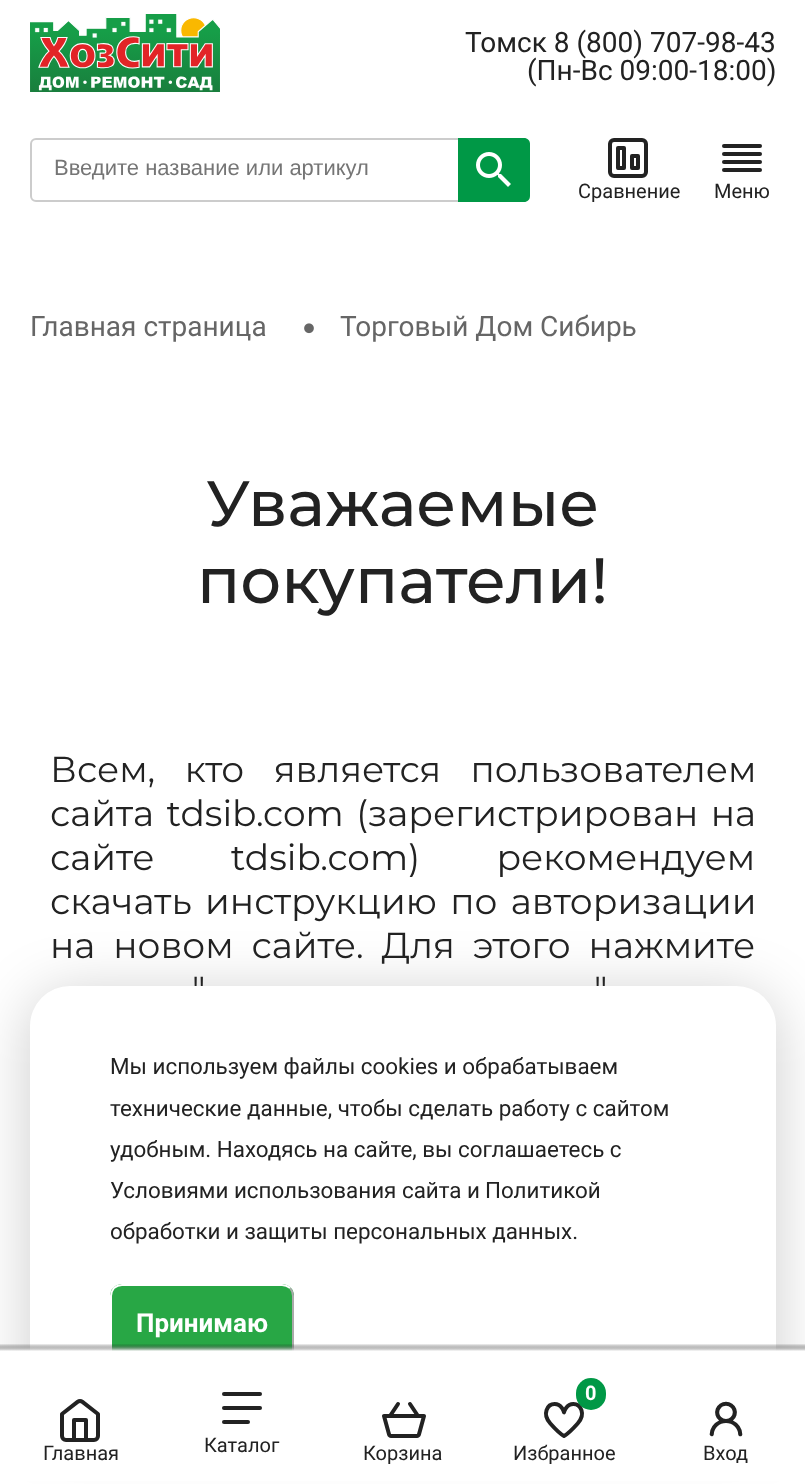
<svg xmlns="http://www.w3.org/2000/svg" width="805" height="1484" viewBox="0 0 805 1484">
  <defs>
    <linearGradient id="g1" gradientUnits="userSpaceOnUse" x1="403" y1="1344" x2="403" y2="1484"><stop offset="0" stop-color="#000" stop-opacity="0.04"/><stop offset="0.05" stop-color="#fff"/></linearGradient>
    <linearGradient id="g2" gradientUnits="userSpaceOnUse" x1="564" y1="1344" x2="564" y2="1484"><stop offset="0" stop-color="#000" stop-opacity="0.04"/><stop offset="0.05" stop-color="#fff"/></linearGradient>
    <linearGradient id="g3" gradientUnits="userSpaceOnUse" x1="725" y1="1344" x2="725" y2="1484"><stop offset="0" stop-color="#000" stop-opacity="0.04"/><stop offset="0.05" stop-color="#fff"/></linearGradient>
    <linearGradient id="g4" gradientUnits="userSpaceOnUse" x1="81" y1="1344" x2="81" y2="1484"><stop offset="0" stop-color="#000" stop-opacity="0.04"/><stop offset="0.05" stop-color="#fff"/></linearGradient>
    <linearGradient id="g5" gradientUnits="userSpaceOnUse" x1="242" y1="1344" x2="242" y2="1484"><stop offset="0" stop-color="#000" stop-opacity="0.04"/><stop offset="0.05" stop-color="#fff"/></linearGradient>
  </defs>
  <rect width="100%" height="100%" fill="#fff"/>
  <image x="30" y="14" width="190" height="78" href="img/1.png"/>
  <rect x="31" y="139" width="496" height="62" rx="5" fill="none" stroke="#ccc" stroke-width="2"/>
  <path d="M458 138H524C527.5 138 530 140.5 530 144V196C530 199.5 527.5 202 524 202H458Z" fill="#009846"/>
  <image x="476" y="152" width="35" height="35" href="img/2.png"/>
  <image x="608" y="138" width="40" height="40" href="img/3.png"/>
  <rect x="722" y="144" width="40" height="4" rx="2" fill="#222"/>
  <rect x="722" y="152" width="40" height="4" rx="2" fill="#222"/>
  <rect x="722" y="160" width="40" height="4" rx="2" fill="#222"/>
  <rect x="722" y="168" width="40" height="4" rx="2" fill="#222"/>
  <image x="304" y="323" width="10" height="11" href="img/9.png"/>
  <rect x="30" y="994" width="746" height="438" rx="40" fill="#00000033" filter="blur(30px)"/>
  <g font-family="Roboto" font-size="28" fill="#222">
    <text x="465" y="52">Томск 8 (800) 707-98-43</text>
    <text x="527" y="80">(Пн-Вс 09:00-18:00)</text>
  </g>
  <text x="54" y="175" font-family="Liberation Sans" font-size="22" fill="#757575">Введите название или артикул</text>
  <g font-family="Roboto" font-size="20" fill="#222">
    <text x="578" y="198">Сравнение</text>
    <text x="714" y="198">Меню</text>
  </g>
  <g font-family="Roboto" font-size="28" fill="#666">
    <text x="30" y="336">Главная страница</text>
    <text x="340" y="336">Торговый Дом Сибирь</text>
  </g>
  <g font-family="Montserrat" font-size="64" font-weight="500" fill="#222">
    <text x="206" y="526">Уважаемые</text>
    <text x="197" y="603">покупатели!</text>
  </g>
  <g font-family="Montserrat" font-size="36" font-weight="100" fill="#222">
    <text x="50" y="782" word-spacing="20">Всем, кто является пользователем</text>
    <text x="50" y="826" word-spacing="3">сайта tdsib.com (зарегистрирован на</text>
    <text x="50" y="870" word-spacing="67">сайте tdsib.com) рекомендуем</text>
    <text x="50" y="914" word-spacing="4">скачать инструкцию по авторизации</text>
    <text x="50" y="958" word-spacing="8.5">на новом сайте. Для этого нажмите</text>
    <text x="192" y="1002">"</text>
    <text x="594" y="1002">"</text>
  </g>
  <rect x="30" y="986" width="746" height="438" rx="40" fill="#fff"/>
  <path d="M322 1344h162v137H322z" fill="url(#g1)"/>
  <image x="382" y="1402" width="44" height="36" href="img/5.png"/>
  <text x="363" y="1460" font-family="Roboto" font-size="20" fill="#222">Корзина</text>
  <path d="M484 1344h160v137H484z" fill="url(#g2)"/>
  <image x="544" y="1402" width="40" height="36" href="img/6.png"/>
  <rect x="576" y="1378" width="30" height="32" rx="15" fill="#009846"/>
  <text x="585" y="1400" font-family="Roboto" font-size="20" font-weight="bold" fill="#fff">0</text>
  <text x="513" y="1460" font-family="Roboto" font-size="20" fill="#222">Избранное</text>
  <path d="M644 1344h161v137H644z" fill="url(#g3)"/>
  <image x="709" y="1401" width="34" height="36" href="img/7.png"/>
  <text x="703" y="1460" font-family="Roboto" font-size="20" fill="#222">Вход</text>
  <g font-family="Roboto" font-size="22.4" fill="#222">
    <text x="110" y="1074">Мы используем файлы cookies и обрабатываем</text>
    <text x="110" y="1116">технические данные, чтобы сделать работу с сайтом</text>
    <text x="110" y="1157">удобным. Находясь на сайте, вы соглашаетесь с</text>
    <text x="110" y="1198">Условиями использования сайта</text>
    <text x="467" y="1198">и</text>
    <text x="485" y="1198">Политикой</text>
    <text x="110" y="1239">обработки и защиты персональных данных.</text>
  </g>
  <rect x="110" y="1284" width="184" height="80" rx="12" fill="#28a745"/>
  <path d="M290 1288C292 1290.5 293 1293 293 1296V1352C293 1355 292 1357.5 290 1360C287.5 1362 285 1363 282 1363H122C119 1363 116.5 1362 114 1360" fill="none" stroke="#aaa" stroke-width="2"/>
  <path d="M114 1360C112 1357.5 111 1355 111 1352V1296C111 1293 112 1290.5 114 1288C116.5 1286 119 1285 122 1285H282C285 1285 287.5 1286 290 1288" fill="none" stroke="#fff" stroke-width="2"/>
  <path d="M0 1344h162v137H0z" fill="url(#g4)"/>
  <image x="60" y="1399" width="40" height="43" href="img/4.png"/>
  <text x="43" y="1460" font-family="Roboto" font-size="20" fill="#222">Главная</text>
  <path d="M162 1344h160v137H162z" fill="url(#g5)"/>
  <image x="222" y="1392" width="40" height="32" href="img/8.png"/>
  <text x="204" y="1452" font-family="Roboto" font-size="20" fill="#222">Каталог</text>
  <text x="136" y="1332" font-family="Roboto" font-size="26" font-weight="bold" fill="#fff">Принимаю</text>
</svg>
